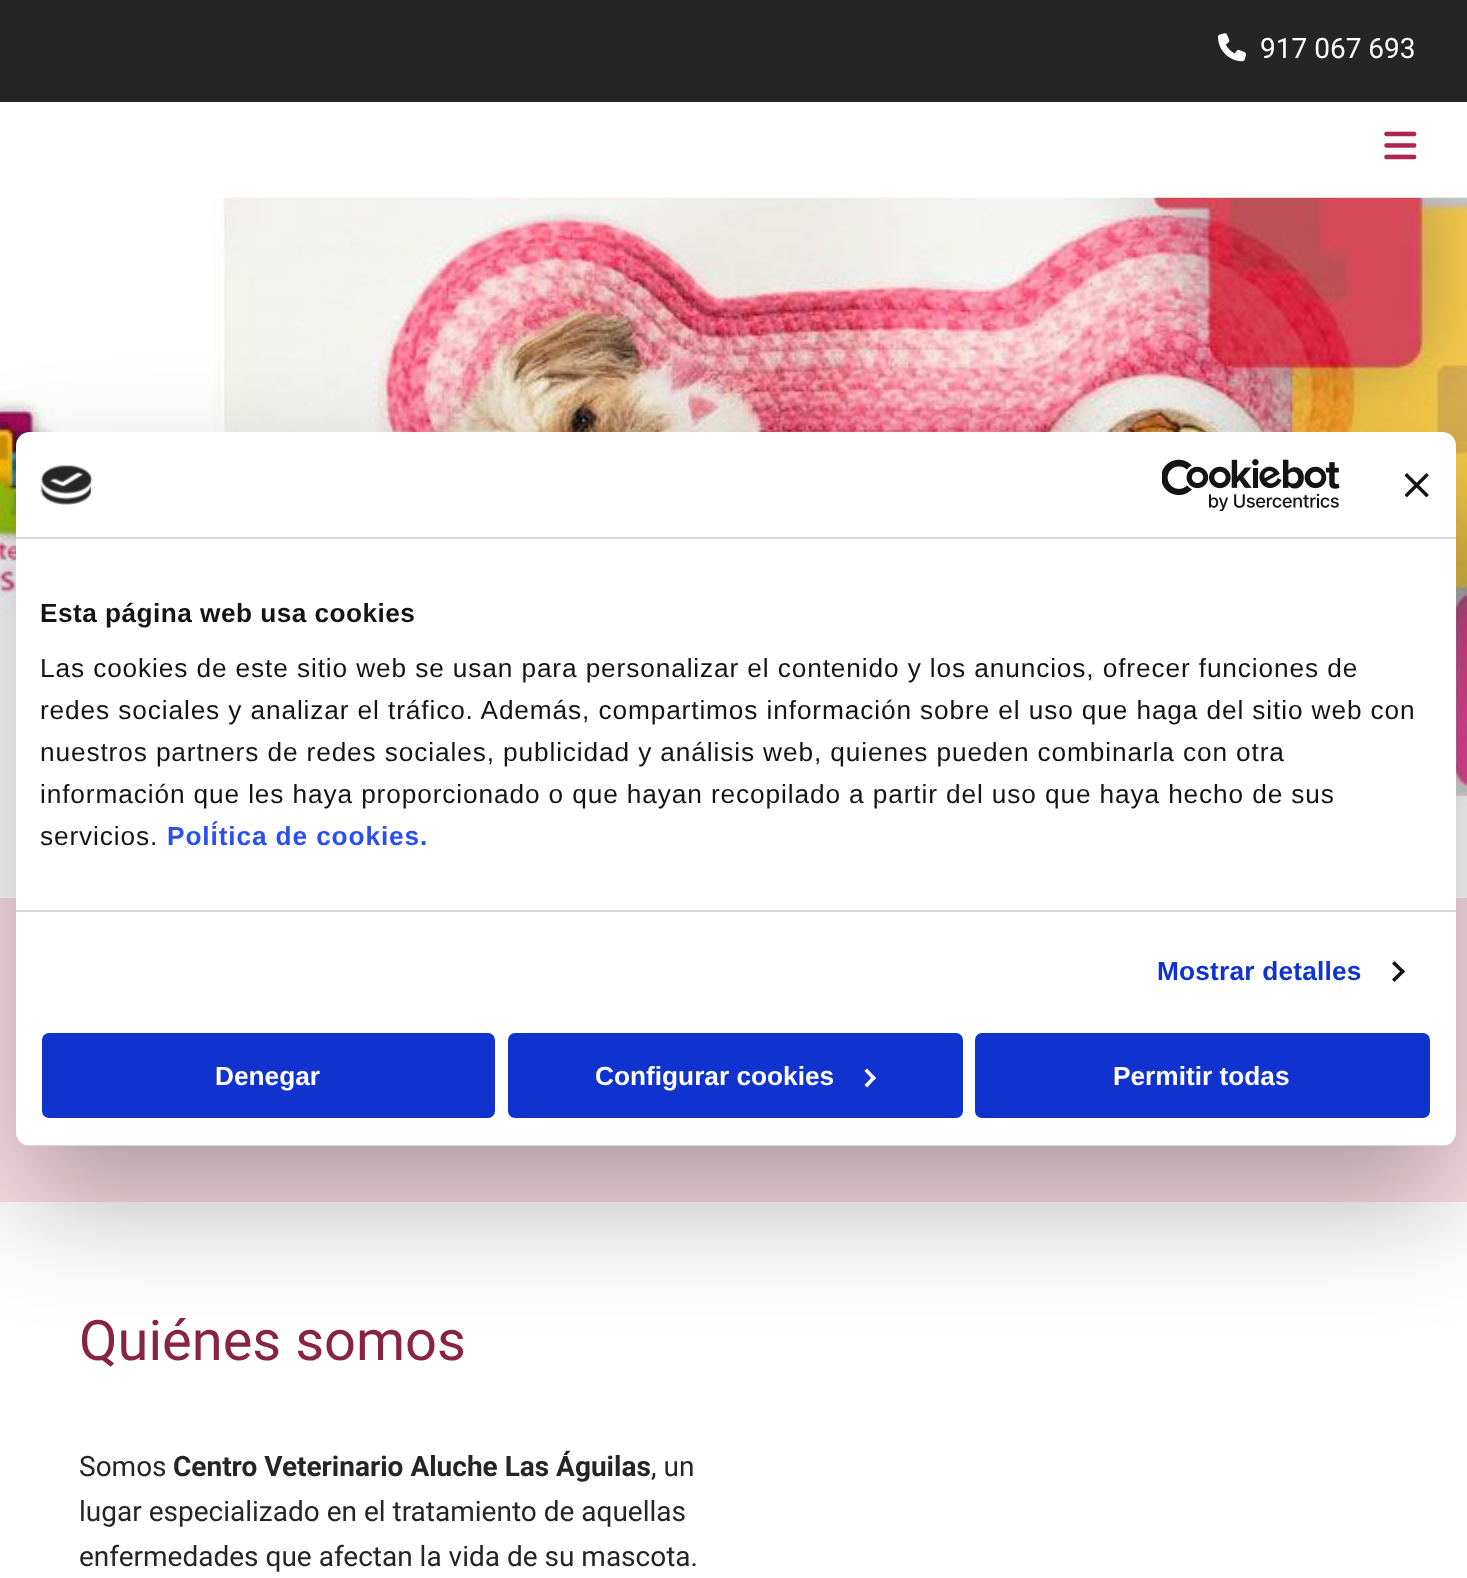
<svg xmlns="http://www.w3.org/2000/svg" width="1467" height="1578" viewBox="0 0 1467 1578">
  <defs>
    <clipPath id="clip1"><rect x="16" y="432" width="1440" height="714" rx="14"/></clipPath>
  </defs>
  <rect width="100%" height="100%" fill="#252525"/>
  <image x="1218" y="33" width="28" height="29" href="img/1.png"/>
  <path d="M0 102h1467v96H0z" fill="#fff"/>
  <image x="1384" y="131" width="33" height="29" href="img/2.png"/>
  <path d="M0 806h1467v92H0z" fill="#fff"/>
  <image x="0" y="197" width="1467" height="609" href="img/3.png"/>
  <path d="M0 898h1467v304H0z" fill="#ffdfe9"/>
  <path d="M0 1202h1467v376H0z" fill="#fff"/>
  <rect x="16" y="488" width="1440" height="714" rx="14" fill="#0000004d" filter="blur(59.5px)"/>
  <rect x="16" y="432" width="1440" height="714" rx="14" fill="#fff"/>
  <path d="M16 537h1440v2H16z" fill="#d6d6d6"/>
  <image x="40" y="465" width="53" height="40" href="img/4.png"/>
  <image x="1162" y="459" width="178" height="52" href="img/5.png"/>
  <image x="1405" y="473" width="24" height="24" href="img/6.png"/>
  <path d="M16 910h1440v2H16z" fill="#d6d6d6"/>
  <path d="M1394.5 961L1405 971.5L1402.5 974L1392 963.5Z" fill="#141414"/>
  <path d="M1402.5 969L1405 971.5L1394.5 982L1392 979.5Z" fill="#141414"/>
  <g clip-path="url(#clip1)">
    <path d="M25 1145h1422v1H25z" fill="#d6d6d6"/>
  </g>
  <rect x="44" y="1035" width="449" height="81" rx="5" fill="#1032cf" stroke="#1032cf" stroke-width="4"/>
  <rect x="510" y="1035" width="451" height="81" rx="5" fill="#1032cf" stroke="#1032cf" stroke-width="4"/>
  <path d="M867 1068.5L876 1078L873.5 1080.5L864.5 1071Z" fill="#fff"/>
  <path d="M873.5 1075.5L876 1078L867 1087.5L864.5 1085Z" fill="#fff"/>
  <rect x="977" y="1035" width="451" height="81" rx="5" fill="#1032cf" stroke="#1032cf" stroke-width="4"/>
  <text x="1260" y="58" font-family="Roboto" font-size="28" fill="#fff">917 067 693</text>
  <text x="79" y="1360" font-family="Roboto" font-size="56" fill="#872344">Quiénes somos</text>
  <text x="79" y="1476" font-family="Roboto" font-size="28" fill="#252525">Somos</text>
  <text x="173" y="1476" font-family="Roboto" font-size="28" font-weight="bold" fill="#252525">Centro Veterinario Aluche Las Águilas</text>
  <g font-family="Roboto" font-size="28" fill="#252525">
    <text x="651" y="1476">, un</text>
    <text x="79" y="1521">lugar especializado en el tratamiento de aquellas</text>
    <text x="79" y="1566">enfermedades que afectan la vida de su mascota.</text>
  </g>
  <text x="40" y="622" font-family="Liberation Sans" font-size="26.25" font-weight="bold" letter-spacing="0.45" fill="#141414">Esta página web usa cookies</text>
  <g font-family="Liberation Sans" font-size="26.25" letter-spacing="0.88" fill="#141414">
    <text x="40" y="677">Las cookies de este sitio web se usan para personalizar el contenido y los anuncios, ofrecer funciones de</text>
    <text x="40" y="719">redes sociales y analizar el tráfico. Además, compartimos información sobre el uso que haga del sitio web con</text>
    <text x="40" y="761">nuestros partners de redes sociales, publicidad y análisis web, quienes pueden combinarla con otra</text>
    <text x="40" y="803">información que les haya proporcionado o que hayan recopilado a partir del uso que haya hecho de sus</text>
    <text x="40" y="845">servicios.</text>
  </g>
  <text x="167" y="845" font-family="Liberation Sans" font-size="26.25" font-weight="bold" letter-spacing="0.88" fill="#2a4eef">Política de cookies.</text>
  <text x="1157" y="980" font-family="Liberation Sans" font-size="26.25" font-weight="bold" letter-spacing="0.2" fill="#1032cf">Mostrar detalles</text>
  <g font-family="Liberation Sans" font-size="26.25" font-weight="bold" fill="#fff">
    <text x="215" y="1085">Denegar</text>
    <text x="595" y="1085">Configurar cookies</text>
    <text x="1113" y="1085">Permitir todas</text>
  </g>
</svg>
